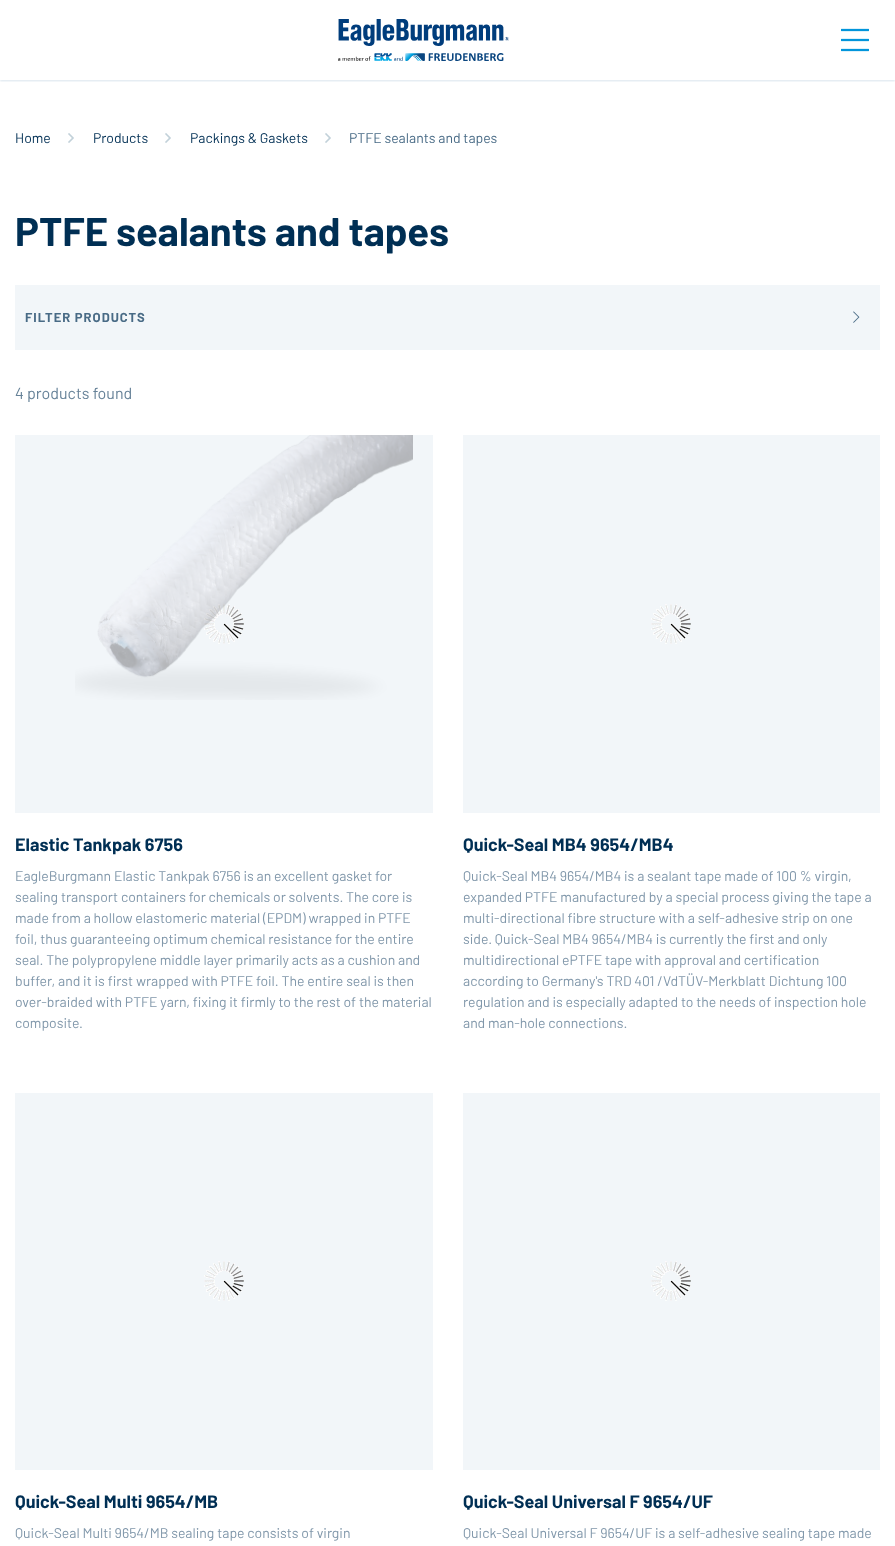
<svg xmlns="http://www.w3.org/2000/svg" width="895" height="1546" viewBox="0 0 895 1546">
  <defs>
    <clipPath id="clip1"><path d="M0 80h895v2H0z"/></clipPath>
  </defs>
  <rect width="100%" height="100%" fill="#fff"/>
  <g clip-path="url(#clip1)">
    <path d="M0 1h895v80H0z" fill="#004b8726" filter="blur(1px)"/>
  </g>
  <image x="338" y="19" width="171" height="42" href="img/1.png"/>
  <image x="841" y="28" width="28" height="24" href="img/2.png"/>
  <image x="68" y="133" width="6" height="10" href="img/3.png"/>
  <image x="165" y="133" width="6" height="10" href="img/3.png"/>
  <image x="325" y="133" width="6" height="10" href="img/3.png"/>
  <path d="M15 285h865v65H15z" fill="#f2f6f9"/>
  <image x="853" y="311" width="7" height="12" href="img/4.png"/>
  <path d="M15 435h418v378H15z" fill="#f2f6f9"/>
  <image x="204" y="604" width="40" height="40" href="img/5.png"/>
  <image x="75" y="435" width="338" height="265" href="img/6.png"/>
  <path d="M463 435h417v378H463z" fill="#f2f6f9"/>
  <image x="651" y="604" width="40" height="40" href="img/5.png"/>
  <path d="M15 1093h418v377H15z" fill="#f2f6f9"/>
  <image x="204" y="1261" width="40" height="40" href="img/5.png"/>
  <path d="M463 1093h417v377H463z" fill="#f2f6f9"/>
  <image x="651" y="1261" width="40" height="40" href="img/5.png"/>
  <g font-family="Barlow" font-size="14" fill="#002f54">
    <text x="15" y="143">Home</text>
    <text x="93" y="143">Products</text>
    <text x="190" y="143">Packings &amp; Gaskets</text>
  </g>
  <text x="349" y="143" font-family="Barlow" font-size="14" fill="#496b86">PTFE sealants and tapes</text>
  <text x="15" y="246" font-family="Barlow" font-size="40" font-weight="bold" fill="#002f54">PTFE sealants and tapes</text>
  <text x="25" y="322" font-family="Barlow" font-size="13" font-weight="bold" letter-spacing="1" fill="#496b86">FILTER PRODUCTS</text>
  <text x="15" y="399" font-family="Barlow" font-size="16" fill="#668298">4 products found</text>
  <text x="15" y="851" font-family="Barlow" font-size="18" font-weight="bold" fill="#002f54">Elastic Tankpak 6756</text>
  <g font-family="Barlow" font-size="14" fill="#8097aa">
    <text x="15" y="881">EagleBurgmann Elastic Tankpak 6756 is an excellent gasket for</text>
    <text x="15" y="902">sealing transport containers for chemicals or solvents. The core is</text>
    <text x="15" y="923">made from a hollow elastomeric material (EPDM) wrapped in PTFE</text>
    <text x="15" y="944">foil, thus guaranteeing optimum chemical resistance for the entire</text>
    <text x="15" y="965">seal. The polypropylene middle layer primarily acts as a cushion and</text>
    <text x="15" y="986">buffer, and it is first wrapped with PTFE foil. The entire seal is then</text>
    <text x="15" y="1007">over-braided with PTFE yarn, fixing it firmly to the rest of the material</text>
    <text x="15" y="1028">composite.</text>
  </g>
  <text x="463" y="851" font-family="Barlow" font-size="18" font-weight="bold" fill="#002f54">Quick-Seal MB4 9654/MB4</text>
  <g font-family="Barlow" font-size="14" fill="#8097aa">
    <text x="463" y="881">Quick-Seal MB4 9654/MB4 is a sealant tape made of 100 % virgin,</text>
    <text x="463" y="902">expanded PTFE manufactured by a special process giving the tape a</text>
    <text x="463" y="923">multi-directional fibre structure with a self-adhesive strip on one</text>
    <text x="463" y="944">side. Quick-Seal MB4 9654/MB4 is currently the first and only</text>
    <text x="463" y="965">multidirectional ePTFE tape with approval and certification</text>
    <text x="463" y="986">according to Germany's TRD 401 /VdTÜV-Merkblatt Dichtung 100</text>
    <text x="463" y="1007">regulation and is especially adapted to the needs of inspection hole</text>
    <text x="463" y="1028">and man-hole connections.</text>
  </g>
  <text x="15" y="1508" font-family="Barlow" font-size="18" font-weight="bold" fill="#002f54">Quick-Seal Multi 9654/MB</text>
  <text x="15" y="1538" font-family="Barlow" font-size="14" fill="#8097aa">Quick-Seal Multi 9654/MB sealing tape consists of virgin</text>
  <text x="463" y="1508" font-family="Barlow" font-size="18" font-weight="bold" fill="#002f54">Quick-Seal Universal F 9654/UF</text>
  <text x="463" y="1538" font-family="Barlow" font-size="14" fill="#8097aa">Quick-Seal Universal F 9654/UF is a self-adhesive sealing tape made</text>
</svg>
